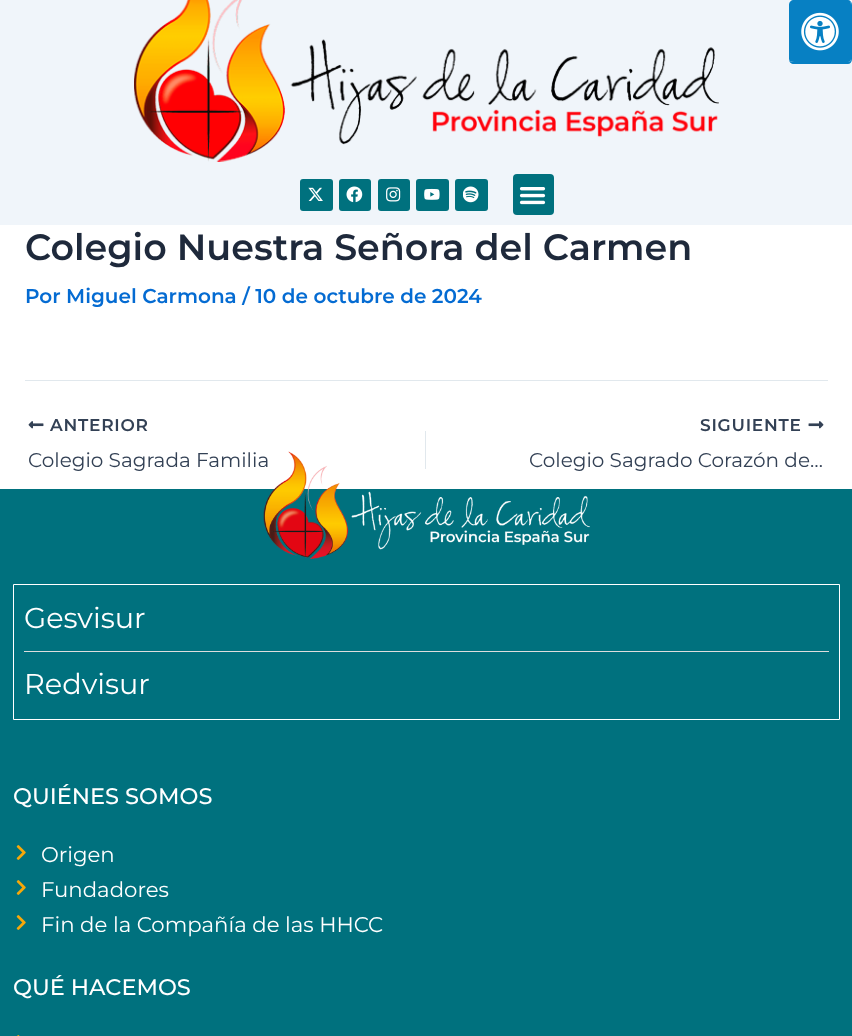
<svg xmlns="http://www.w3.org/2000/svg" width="852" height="1036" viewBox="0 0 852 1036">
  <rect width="100%" height="100%" fill="#fff"/>
  <path d="M0 0h852v225H0z" fill="#f0f5fa"/>
  <path d="M794 0H848C850 0 851 2 851 5V59C851 61 850 62 848 62H794C791 62 789 61 789 59V5C789 2 791 0 794 0Z" fill="#0780c3"/>
  <path d="M794 0H848C850 0 852 2 852 5V59C852 62 850 64 848 64H794C791 64 789 62 789 59V5C789 2 791 0 794 0ZM794 0H848C850 0 851 2 851 5V59C851 61 850 62 848 62H794C791 62 789 61 789 59V5C789 2 791 0 794 0Z" fill="#0780c3" fill-rule="evenodd"/>
  <image x="801" y="12" width="38" height="39" href="img/1.png"/>
  <image x="134" y="0" width="585" height="162" href="img/2.png"/>
  <rect x="300" y="179" width="33" height="32" rx="3" fill="#00717e"/>
  <image x="308" y="187" width="15" height="14" href="img/3.png"/>
  <rect x="339" y="179" width="32" height="32" rx="3" fill="#00717e"/>
  <image x="346" y="186" width="17" height="17" href="img/4.png"/>
  <rect x="378" y="179" width="32" height="32" rx="3" fill="#00717e"/>
  <image x="386" y="187" width="15" height="15" href="img/5.png"/>
  <rect x="416" y="179" width="33" height="32" rx="3" fill="#00717e"/>
  <image x="424" y="188" width="16" height="12" href="img/6.png"/>
  <rect x="455" y="179" width="33" height="32" rx="3" fill="#00717e"/>
  <image x="463" y="186" width="16" height="17" href="img/7.png"/>
  <rect x="513" y="174" width="41" height="41" rx="4" fill="#00717e"/>
  <image x="519" y="187" width="27" height="18" href="img/8.png"/>
  <path d="M25 380h803v1H25z" fill="#e1e8ed"/>
  <image x="28" y="421" width="16" height="8" href="img/9.png"/>
  <path d="M425 431h1v38H425z" fill="#e1e8ed"/>
  <image x="808" y="421" width="16" height="8" href="img/10.png"/>
  <path d="M0 489h852v547H0z" fill="#00717e"/>
  <path d="M13.5 584.5h826v135H13.5z" fill="none" stroke="#fff"/>
  <path d="M24 651h805v1H24z" fill="#ddd"/>
  <image x="16" y="845" width="10" height="15" href="img/12.png"/>
  <image x="16" y="880" width="10" height="15" href="img/12.png"/>
  <image x="16" y="915" width="10" height="15" href="img/12.png"/>
  <image x="17" y="1035" width="3" height="1" href="img/13.png"/>
  <text x="25" y="260" font-family="Montserrat" font-size="36.5" font-weight="600" fill="#1e293b">Colegio Nuestra Señora del Carmen</text>
  <text x="25" y="303" font-family="Montserrat" font-size="20" font-weight="600" fill="#046bd2">Por Miguel Carmona / 10 de octubre de 2024</text>
  <text x="50" y="431" font-family="Montserrat" font-size="17" font-weight="600" letter-spacing="0.75" fill="#334155">ANTERIOR</text>
  <text x="28" y="467" font-family="Montserrat" font-size="20" fill="#334155">Colegio Sagrada Familia</text>
  <text x="700" y="431" font-family="Montserrat" font-size="17" font-weight="600" letter-spacing="0.75" fill="#334155">SIGUIENTE</text>
  <text x="529" y="467" font-family="Montserrat" font-size="20" fill="#334155">Colegio Sagrado Corazón de…</text>
  <image x="263" y="451" width="327" height="108" href="img/11.png"/>
  <g font-family="Montserrat" font-size="28.75" fill="#fff">
    <text x="24" y="628">Gesvisur</text>
    <text x="24" y="694">Redvisur</text>
  </g>
  <text x="13" y="804" font-family="Montserrat" font-size="22.5" font-weight="500" fill="#fff">QUIÉNES SOMOS</text>
  <g font-family="Montserrat" font-size="21.25" fill="#fff">
    <text x="41" y="862">Origen</text>
    <text x="41" y="897">Fundadores</text>
    <text x="41" y="932">Fin de la Compañía de las HHCC</text>
  </g>
  <text x="13" y="995" font-family="Montserrat" font-size="22.5" font-weight="500" fill="#fff">QUÉ HACEMOS</text>
</svg>
